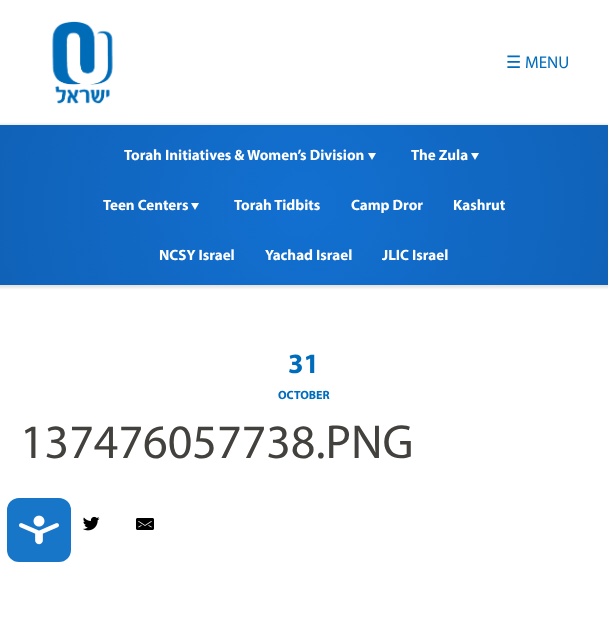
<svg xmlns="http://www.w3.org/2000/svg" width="608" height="622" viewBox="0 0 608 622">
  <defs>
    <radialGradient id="g1" gradientUnits="userSpaceOnUse" cx="304" cy="205" r="314"><stop offset="0" stop-color="#1270d1"/><stop offset="1" stop-color="#1062b8"/></radialGradient>
  </defs>
  <rect width="100%" height="100%" fill="#fff"/>
  <image x="52" y="21" width="61" height="83" href="img/1.png"/>
  <path d="M-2 124h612v164H-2z" fill="#0000001a" filter="blur(1px)"/>
  <path d="M0 125h608v160H0z" fill="url(#g1)"/>
  <path d="M368 153H376L372 160Z" fill="#fff"/>
  <path d="M471 153H479L475 160Z" fill="#fff"/>
  <path d="M191 203H199L195 210Z" fill="#fff"/>
  <image x="83" y="516" width="17" height="15" href="img/2.png"/>
  <image x="136" y="518" width="18" height="12" href="img/3.png"/>
  <rect x="7" y="498" width="64" height="64" rx="12" fill="#1876c9"/>
  <image x="19" y="515" width="40" height="30" href="img/4.png"/>
  <text x="506" y="68" font-family="DejaVu Sans" font-size="17" fill="#006cbc">☰</text>
  <text x="525" y="68" font-family="Myriad" font-size="17" fill="#006cbc">MENU</text>
  <g font-family="Myriad" font-size="15" font-weight="bold" fill="#fff">
    <text x="124" y="160">Torah Initiatives &amp; Women’s Division</text>
    <text x="411" y="160">The Zula</text>
    <text x="103" y="210">Teen Centers</text>
    <text x="234" y="210">Torah Tidbits</text>
    <text x="351" y="210">Camp Dror</text>
    <text x="453" y="210">Kashrut</text>
    <text x="159" y="260">NCSY Israel</text>
    <text x="265" y="260">Yachad Israel</text>
    <text x="382" y="260">JLIC Israel</text>
  </g>
  <text x="288" y="373" font-family="Myriad" font-size="28" font-weight="bold" fill="#006cbc">31</text>
  <text x="278" y="399" font-family="Myriad" font-size="12" font-weight="bold" fill="#006cbc">OCTOBER</text>
  <text x="20" y="458" font-family="Myriad" font-size="48" fill="#43413d">137476057738.PNG</text>
</svg>
